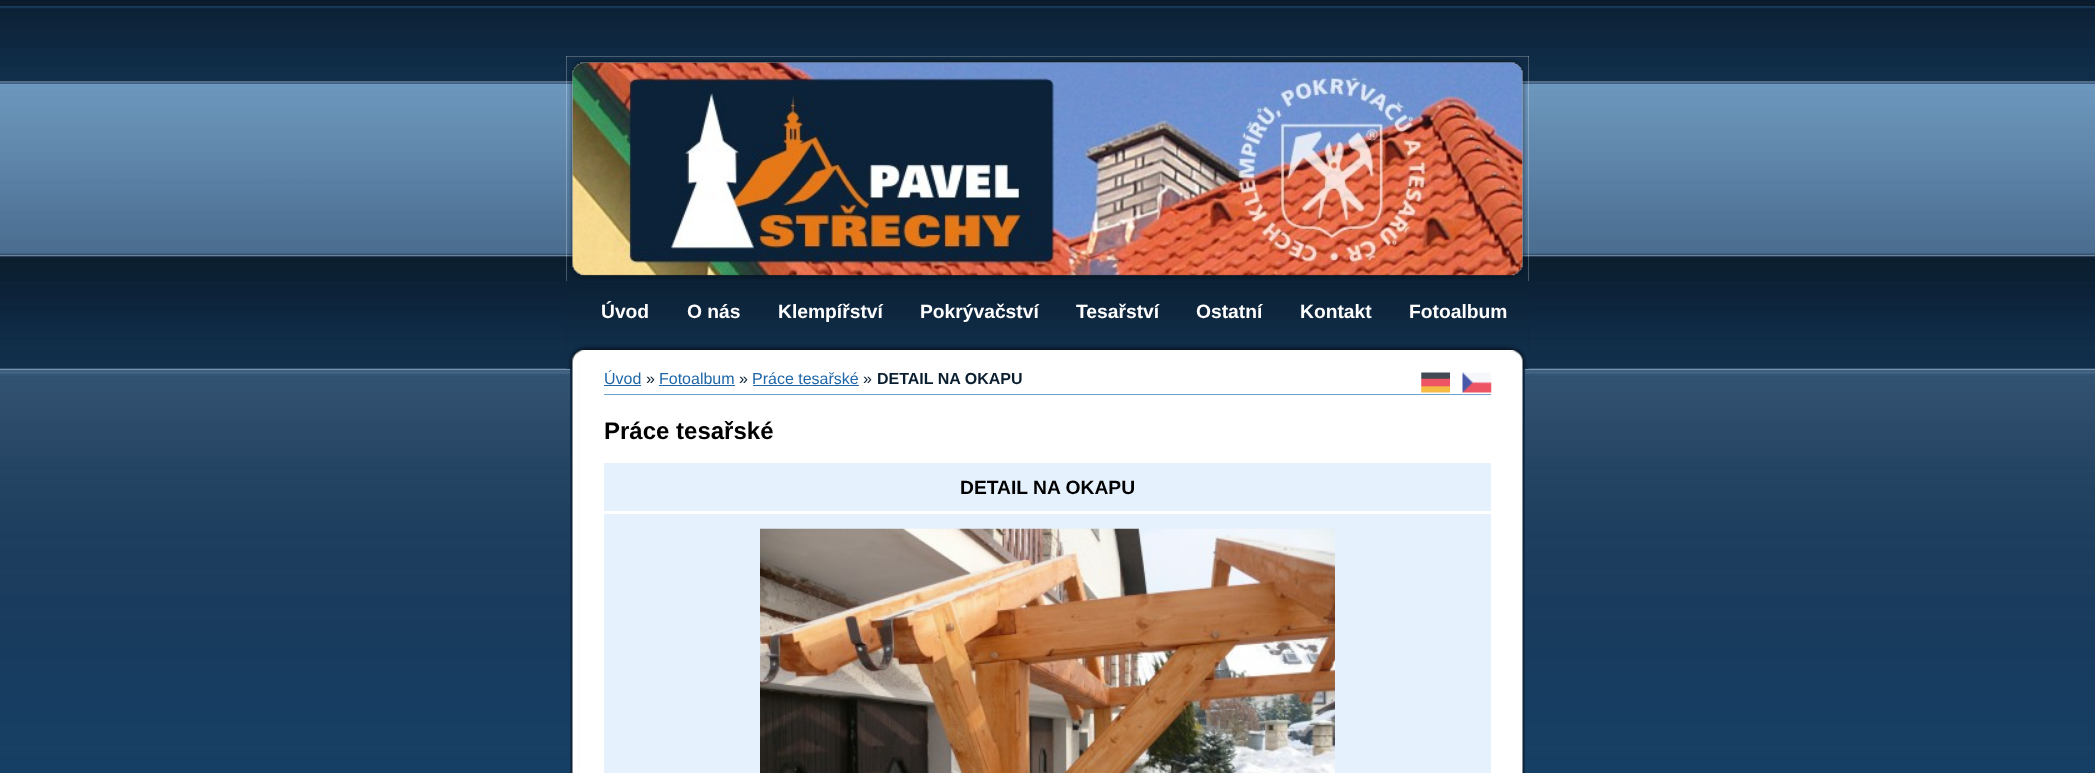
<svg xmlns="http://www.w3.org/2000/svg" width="2095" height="773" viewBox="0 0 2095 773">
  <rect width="100%" height="100%" fill="#fff"/>
  <image x="0" y="0" width="2095" height="773" href="img/1.png"/>
  <path d="M566 56h963v225H566z" fill="#fff"/>
  <image x="572" y="62" width="951" height="214" href="img/2.png"/>
  <image x="566" y="56" width="963" height="225" href="img/3.png"/>
  <image x="570" y="368" width="955" height="405" href="img/4.png"/>
  <path d="M566 281h963v69H566z" fill="#0e273f"/>
  <image x="566" y="281" width="963" height="69" href="img/5.png"/>
  <image x="566" y="350" width="963" height="19" href="img/6.png"/>
  <path d="M579 356h302v417H579z" fill="#fff"/>
  <path d="M604 394h887v1H604z" fill="#74a2cf"/>
  <path d="M604 385h37v1H604z" fill="#1e66a8"/>
  <path d="M659 385h76v1H659z" fill="#1e66a8"/>
  <path d="M753 385h106v1H753z" fill="#1e66a8"/>
  <path d="M604 463h887v48H604z" fill="#e5f1fd"/>
  <path d="M604 514h887v259H604z" fill="#e5f1fd"/>
  <image x="760" y="528" width="575" height="245" href="img/7.png"/>
  <image x="1421" y="372" width="29" height="21" href="img/8.png"/>
  <image x="1462" y="372" width="30" height="21" href="img/9.png"/>
  <g font-family="Liberation Sans" font-size="19.25" font-weight="bold" fill="#fff">
    <text x="601" y="318">Úvod</text>
    <text x="687" y="318">O nás</text>
    <text x="778" y="318">Klempířství</text>
    <text x="920" y="318">Pokrývačství</text>
    <text x="1076" y="318">Tesařství</text>
    <text x="1196" y="318">Ostatní</text>
    <text x="1300" y="318">Kontakt</text>
    <text x="1409" y="318">Fotoalbum</text>
  </g>
  <text x="604" y="384" font-family="Liberation Sans" font-size="16" fill="#1e66a8">Úvod</text>
  <text x="646" y="384" font-family="Liberation Sans" font-size="16" fill="#0a1e30">»</text>
  <text x="659" y="384" font-family="Liberation Sans" font-size="16" fill="#1e66a8">Fotoalbum</text>
  <text x="739" y="384" font-family="Liberation Sans" font-size="16" fill="#0a1e30">»</text>
  <text x="752" y="384" font-family="Liberation Sans" font-size="16" fill="#1e66a8">Práce tesařské</text>
  <text x="863" y="384" font-family="Liberation Sans" font-size="16" fill="#0a1e30">»</text>
  <text x="877" y="384" font-family="Liberation Sans" font-size="16" font-weight="bold" fill="#0a1e30">DETAIL NA OKAPU</text>
  <text x="604" y="439" font-family="Liberation Sans" font-size="24" font-weight="bold" fill="#000">Práce tesařské</text>
  <text x="960" y="494" font-family="Liberation Sans" font-size="19.25" font-weight="bold" fill="#000">DETAIL NA OKAPU</text>
</svg>
